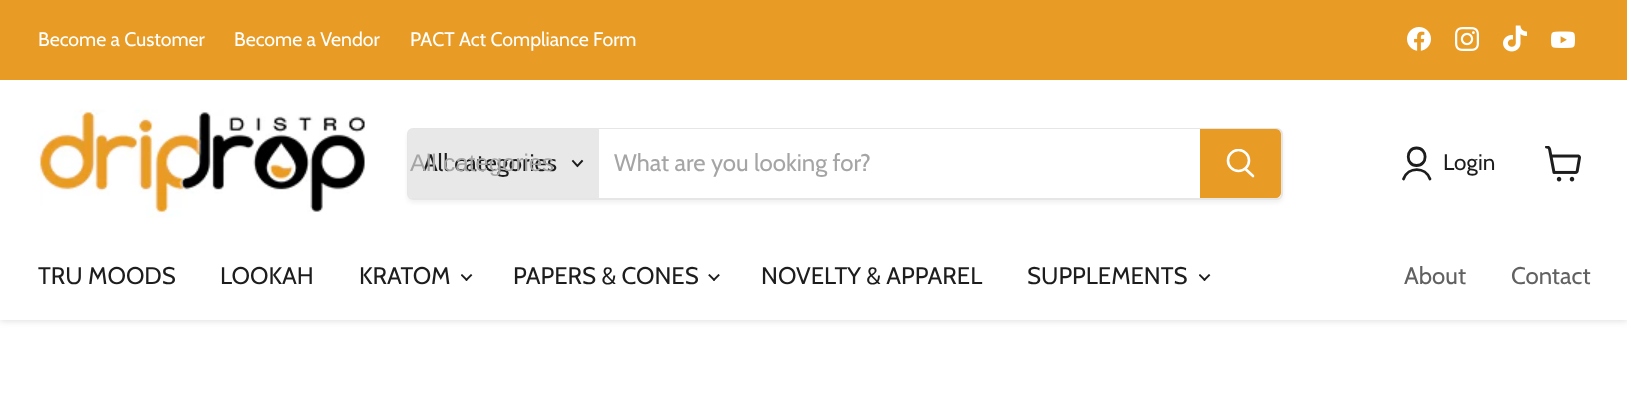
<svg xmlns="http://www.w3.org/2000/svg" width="1627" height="403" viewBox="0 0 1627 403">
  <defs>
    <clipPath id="clip1"><path d="M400 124H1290V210H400ZM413 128H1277C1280.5 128 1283 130.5 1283 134V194C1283 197.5 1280.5 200 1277 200H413C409.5 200 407 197.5 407 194V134C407 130.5 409.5 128 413 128Z" clip-rule="evenodd"/></clipPath>
    <clipPath id="clip2"><path d="M1226 149h30v31H1226z"/></clipPath>
  </defs>
  <rect width="100%" height="100%" fill="#fff"/>
  <path d="M0 81h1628v240H0z" fill="#80808040" filter="blur(3px)"/>
  <path d="M0 0h1627v80H0z" fill="#e89c26"/>
  <image x="1407" y="27" width="24" height="24" href="img/1.png"/>
  <image x="1455" y="27" width="24" height="24" href="img/2.png"/>
  <image x="1503" y="25" width="24" height="27" href="img/3.png"/>
  <image x="1551" y="31" width="24" height="17" href="img/4.png"/>
  <path d="M0 80h1627v240H0z" fill="#fff"/>
  <image x="37" y="109" width="328" height="109" href="img/5.png"/>
  <g clip-path="url(#clip1)">
    <rect x="407" y="131" width="876" height="72" rx="6" fill="#8080801c" filter="blur(2px)"/>
  </g>
  <rect x="408" y="129" width="874" height="70" rx="5" fill="none" stroke="#80808033" stroke-width="2"/>
  <path d="M413 129H599V198H413C410 198 408 196 408 193V134C408 131 410 129 413 129Z" fill="#e8e8e8"/>
  <path d="M577.5 166L582 161M577.5 166L573 161" fill="none" stroke="#1d1d1d" stroke-width="1.9" stroke-linecap="square"/>
  <path d="M599 129h601v1H599z" fill="#fff"/>
  <path d="M1201 130H1276C1278 130 1280 132 1280 134V193C1280 195 1278 197 1276 197H1201Z" fill="#e89c26" stroke="#e89c26" stroke-width="2"/>
  <path d="M1253 176L1245.5 169" fill="none" stroke="#fff" stroke-width="2.6" stroke-linecap="round"/>
  <g clip-path="url(#clip2)">
    <circle cx="1238.5" cy="160.5" r="10.5" fill="none" stroke="#fff" stroke-width="2.6"/>
  </g>
  <path d="M1416.5 165.5C1428 165.5 1428 148 1416.5 148C1405.5 148 1405.5 165.5 1416.5 165.5ZM1430 179C1425.5 166.5 1408 166.5 1403.5 179" fill="none" stroke="#1d1d1d" stroke-width="2.8" stroke-linecap="round" stroke-linejoin="round"/>
  <image x="1545" y="146" width="36" height="36" href="img/6.png"/>
  <image x="461" y="274" width="12" height="7" href="img/7.png"/>
  <image x="708" y="274" width="12" height="7" href="img/8.png"/>
  <image x="1199" y="274" width="12" height="7" href="img/7.png"/>
  <g font-family="Cabin" font-size="19.5" fill="#fff">
    <text x="38" y="46">Become a Customer</text>
    <text x="234" y="46">Become a Vendor</text>
    <text x="410" y="46">PACT Act Compliance Form</text>
  </g>
  <text x="423" y="171" font-family="Cabin" font-size="24" fill="#1d1d1d">All categories</text>
  <text x="410" y="171" font-family="Liberation Sans" font-size="24" fill="#a5a5a5">All categories</text>
  <text x="614" y="171" font-family="Cabin" font-size="24" fill="#a5a5a5">What are you looking for?</text>
  <text x="1443" y="170" font-family="Cabin" font-size="22.5" fill="#1d1d1d">Login</text>
  <g font-family="Cabin" font-size="24" fill="#1d1d1d">
    <text x="38" y="284">TRU MOODS</text>
    <text x="220" y="284">LOOKAH</text>
    <text x="359" y="284">KRATOM</text>
    <text x="513" y="284">PAPERS &amp; CONES</text>
    <text x="761" y="284">NOVELTY &amp; APPAREL</text>
    <text x="1027" y="284">SUPPLEMENTS</text>
  </g>
  <g font-family="Cabin" font-size="24" fill="#616161">
    <text x="1404" y="284">About</text>
    <text x="1511" y="284">Contact</text>
  </g>
</svg>
